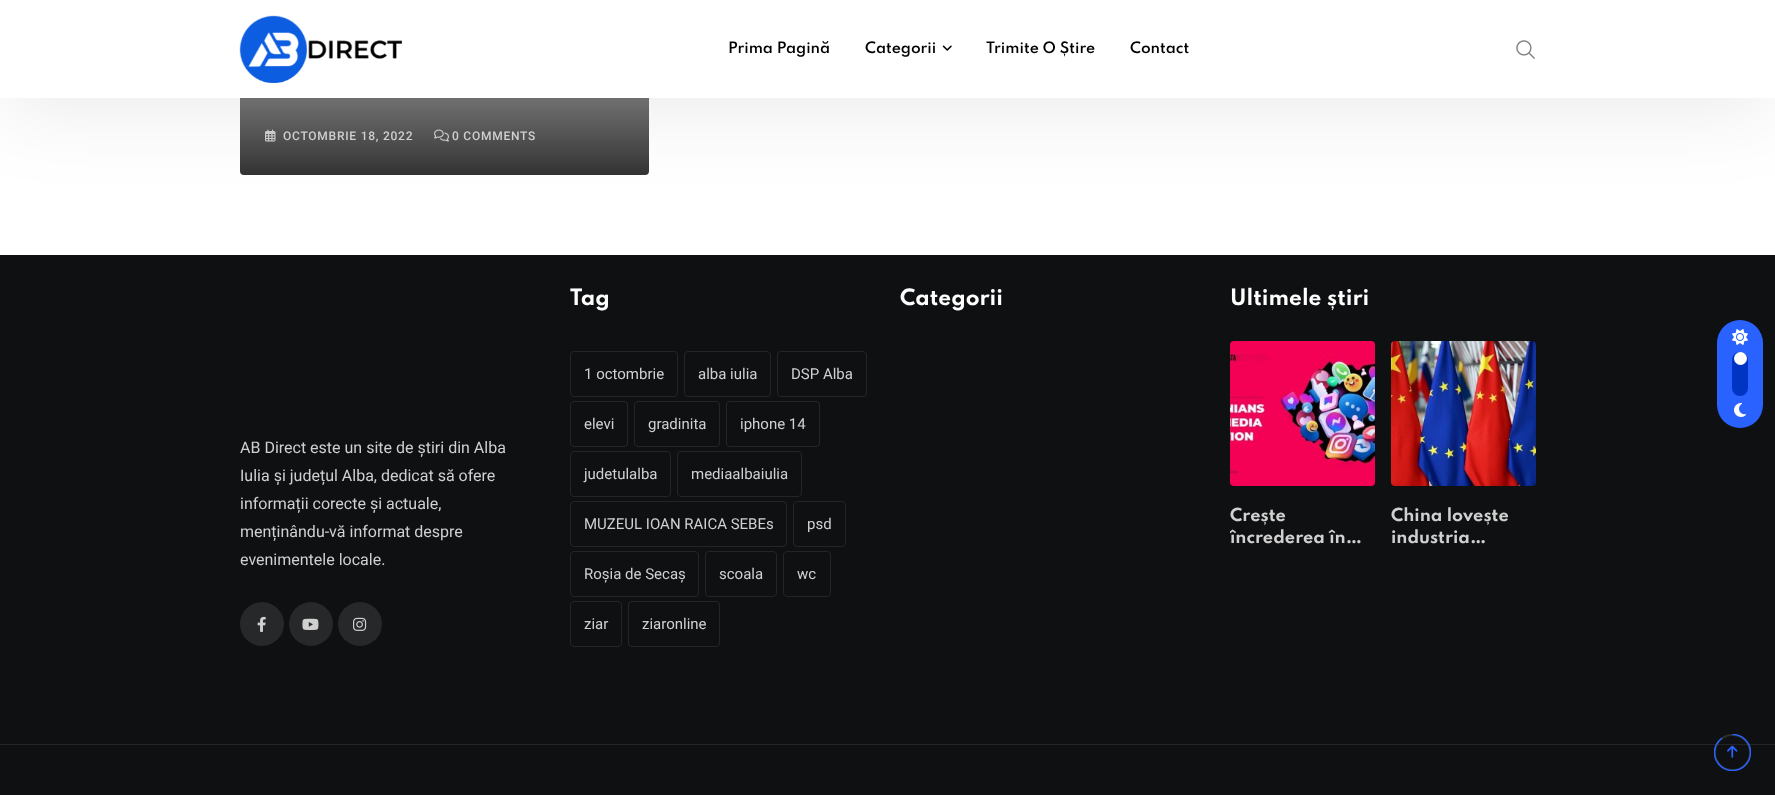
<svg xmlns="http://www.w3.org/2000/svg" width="1775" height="795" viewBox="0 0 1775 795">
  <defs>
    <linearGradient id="g1" gradientUnits="userSpaceOnUse" x1="445" y1="-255" x2="445" y2="175"><stop offset="0" stop-color="#fff"/><stop offset="0.59" stop-color="#ccc"/><stop offset="1" stop-color="#333"/></linearGradient>
    <clipPath id="clip1"><path d="M1714 734h37v37H1714z"/></clipPath>
    <clipPath id="clip2"><path d="M1230 505h145v44H1230z"/></clipPath>
  </defs>
  <rect width="100%" height="100%" fill="#0f1012"/>
  <path d="M0 98h1775v157H0z" fill="#fff"/>
  <rect x="240" y="-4" width="409" height="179" rx="4" fill="url(#g1)"/>
  <image x="265" y="129" width="11" height="13" href="img/4.png"/>
  <image x="434" y="129" width="15" height="13" href="img/5.png"/>
  <path d="M0 0h1775v98H0z" fill="#0000001a" filter="blur(45px)"/>
  <path d="M0 0h1775v98H0z" fill="#fff"/>
  <image x="239" y="15" width="163" height="68" href="img/1.png"/>
  <image x="942" y="45" width="10" height="6" href="img/2.png"/>
  <image x="1516" y="40" width="19" height="19" href="img/3.png"/>
  <rect x="570.5" y="351.5" width="107" height="45" rx="3.5" fill="none" stroke="#252525"/>
  <rect x="684.5" y="351.5" width="86" height="45" rx="3.5" fill="none" stroke="#252525"/>
  <rect x="777.5" y="351.5" width="89" height="45" rx="3.5" fill="none" stroke="#252525"/>
  <rect x="570.5" y="401.5" width="57" height="45" rx="3.5" fill="none" stroke="#252525"/>
  <rect x="634.5" y="401.5" width="85" height="45" rx="3.5" fill="none" stroke="#252525"/>
  <rect x="726.5" y="401.5" width="93" height="45" rx="3.5" fill="none" stroke="#252525"/>
  <rect x="570.5" y="451.5" width="100" height="45" rx="3.5" fill="none" stroke="#252525"/>
  <rect x="677.5" y="451.5" width="124" height="45" rx="3.5" fill="none" stroke="#252525"/>
  <rect x="570.5" y="501.5" width="216" height="45" rx="3.5" fill="none" stroke="#252525"/>
  <rect x="793.5" y="501.5" width="52" height="45" rx="3.5" fill="none" stroke="#252525"/>
  <rect x="570.5" y="551.5" width="128" height="45" rx="3.5" fill="none" stroke="#252525"/>
  <rect x="705.5" y="551.5" width="71" height="45" rx="3.5" fill="none" stroke="#252525"/>
  <rect x="783.5" y="551.5" width="47" height="45" rx="3.5" fill="none" stroke="#252525"/>
  <rect x="570.5" y="601.5" width="51" height="45" rx="3.5" fill="none" stroke="#252525"/>
  <rect x="628.5" y="601.5" width="91" height="45" rx="3.5" fill="none" stroke="#252525"/>
  <image x="1230" y="341" width="145" height="145" href="img/6.png"/>
  <image x="1391" y="341" width="145" height="145" href="img/7.png"/>
  <circle cx="262" cy="624" r="22" fill="#27282a"/>
  <image x="257" y="616" width="9" height="16" href="img/8.png"/>
  <circle cx="311" cy="624" r="22" fill="#27282a"/>
  <image x="302" y="618" width="17" height="12" href="img/9.png"/>
  <circle cx="360" cy="624" r="22" fill="#27282a"/>
  <image x="353" y="617" width="14" height="14" href="img/10.png"/>
  <path d="M0 744h1775v1H0z" fill="#252525"/>
  <circle cx="1732.5" cy="752.5" r="17.5" fill="none" stroke="#80828640" stroke-width="2"/>
  <g clip-path="url(#clip1)">
    <path d="M1732.5 734.5C1742.5 734.5 1750.5 742.5 1750.5 752.5C1750.5 762.5 1742.5 770.5 1732.5 770.5C1722.5 770.5 1714.5 762.5 1714.5 752.5C1714.5 746.5 1717.5 741.5 1722 738" fill="none" stroke="#2962ff" stroke-width="1.5"/>
  </g>
  <image x="1727" y="745" width="11" height="13" href="img/11.png"/>
  <rect x="1717" y="320" width="46" height="108" rx="23" fill="#2962ff"/>
  <image x="1732" y="329" width="16" height="16" href="img/12.png"/>
  <rect x="1732" y="352" width="16" height="44" rx="8" fill="#0034c2"/>
  <circle cx="1740.5" cy="358.5" r="6.5" fill="#fff"/>
  <image x="1734" y="403" width="12" height="14" href="img/13.png"/>
  <g font-family="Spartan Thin" font-size="14" font-weight="600" fill="#000">
    <text x="728" y="53">Prima Pagină</text>
    <text x="865" y="53">Categorii</text>
    <text x="986" y="53">Trimite O Știre</text>
    <text x="1130" y="53">Contact</text>
  </g>
  <g font-family="Roboto" font-size="12" font-weight="500" letter-spacing="0.75" fill="#d0d0d0">
    <text x="283" y="140">OCTOMBRIE 18, 2022</text>
    <text x="452" y="140">0 COMMENTS</text>
  </g>
  <text x="570" y="305" font-family="Spartan Thin" font-size="20" font-weight="bold" fill="#fff">Tag</text>
  <g font-family="Roboto" font-size="15" fill="#d0d0d0">
    <text x="584" y="379">1 octombrie</text>
    <text x="698" y="379">alba iulia</text>
    <text x="791" y="379">DSP Alba</text>
    <text x="584" y="429">elevi</text>
    <text x="648" y="429">gradinita</text>
    <text x="740" y="429">iphone 14</text>
    <text x="584" y="479">judetulalba</text>
    <text x="691" y="479">mediaalbaiulia</text>
    <text x="584" y="529">MUZEUL IOAN RAICA SEBEs</text>
    <text x="807" y="529">psd</text>
    <text x="584" y="579">Roșia de Secaș</text>
    <text x="719" y="579">scoala</text>
    <text x="797" y="579">wc</text>
    <text x="584" y="629">ziar</text>
    <text x="642" y="629">ziaronline</text>
  </g>
  <g font-family="Spartan Thin" font-size="20" font-weight="bold" fill="#fff">
    <text x="900" y="305">Categorii</text>
    <text x="1230" y="305">Ultimele știri</text>
  </g>
  <text x="1230" y="521" font-family="Spartan Thin" font-size="16" font-weight="bold" fill="#d0d0d0">Crește</text>
  <g clip-path="url(#clip2)">
    <text x="1230" y="543" font-family="Spartan Thin" font-size="16" font-weight="bold" fill="#d0d0d0">încrederea în…</text>
  </g>
  <g font-family="Spartan Thin" font-size="16" font-weight="bold" fill="#d0d0d0">
    <text x="1391" y="521">China lovește</text>
    <text x="1391" y="543">industria…</text>
  </g>
  <g font-family="Roboto" font-size="16" fill="#d0d0d0">
    <text x="240" y="453">AB Direct este un site de știri din Alba</text>
    <text x="240" y="481">Iulia și județul Alba, dedicat să ofere</text>
    <text x="240" y="509">informații corecte și actuale,</text>
    <text x="240" y="537">menținându-vă informat despre</text>
    <text x="240" y="565">evenimentele locale.</text>
  </g>
</svg>
